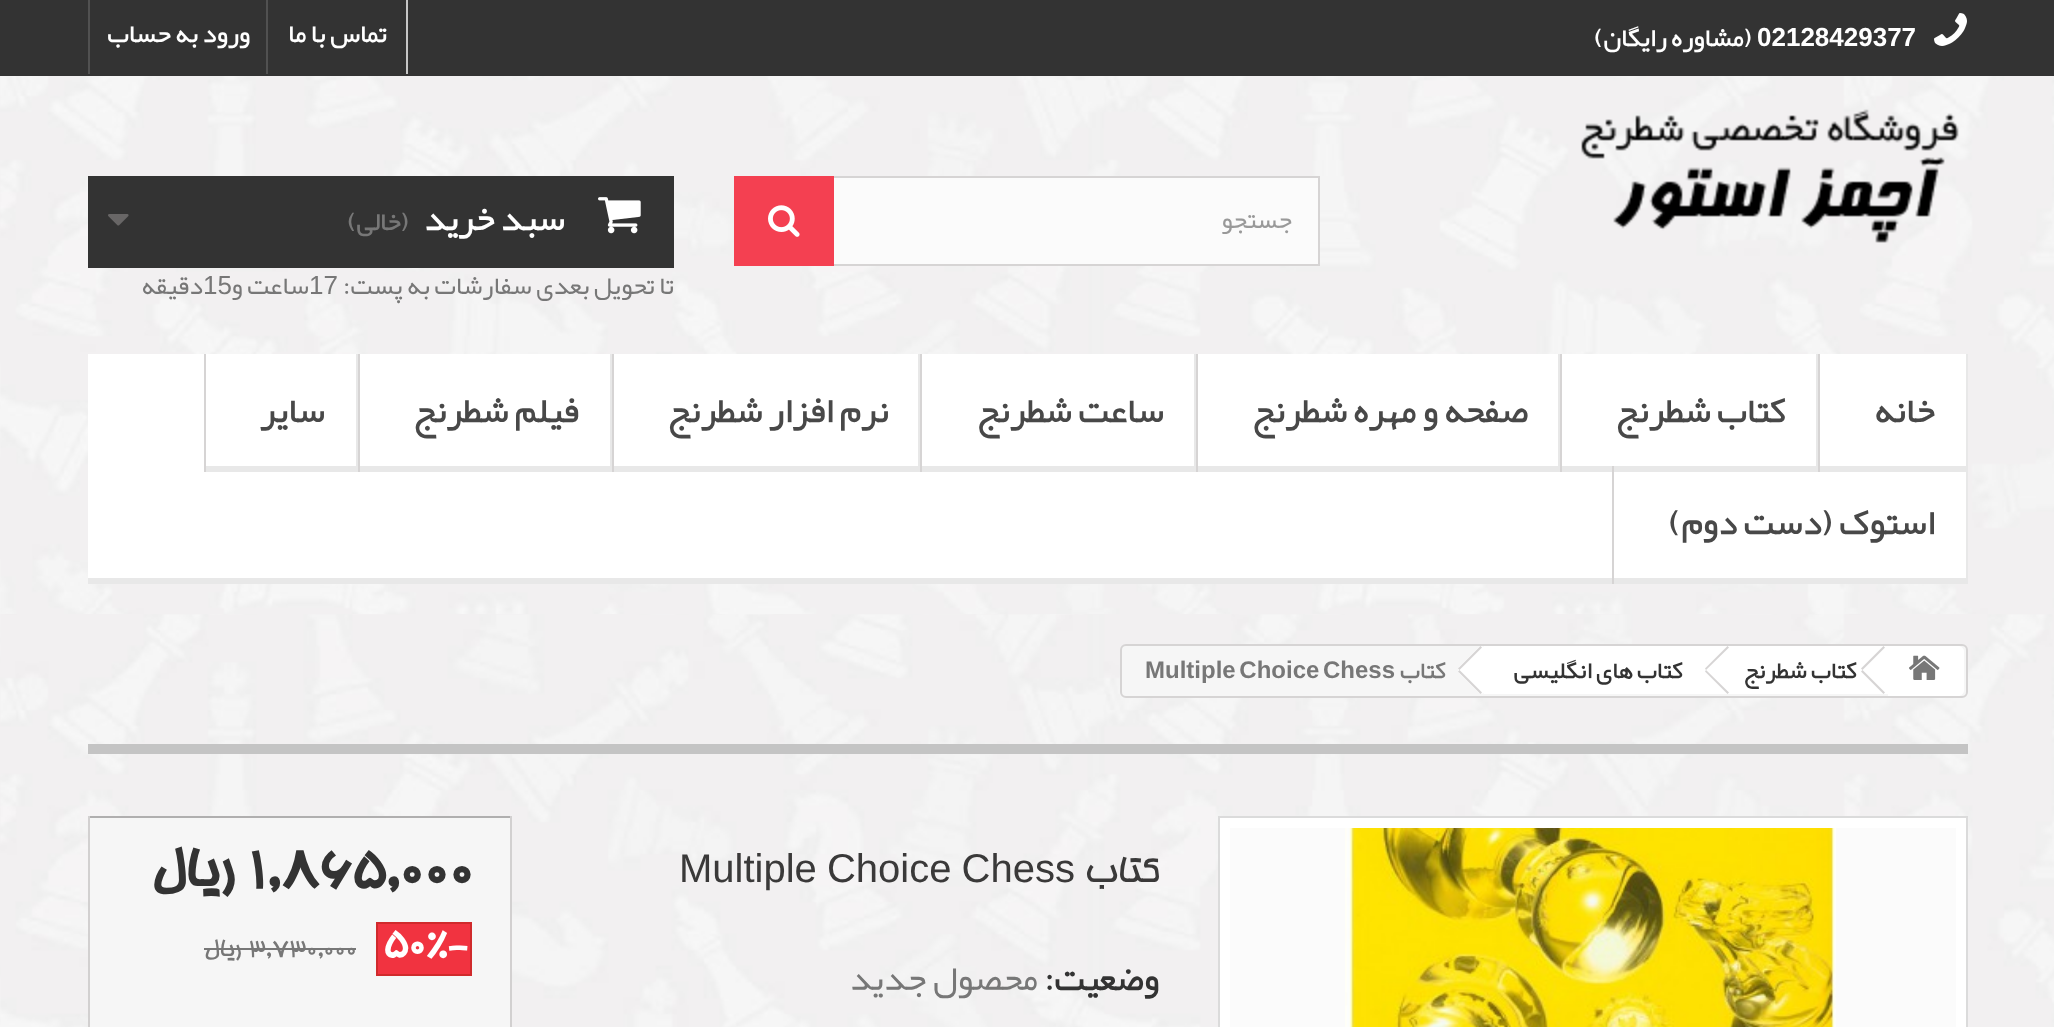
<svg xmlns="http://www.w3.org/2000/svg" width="2054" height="1027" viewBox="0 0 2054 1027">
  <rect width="100%" height="100%" fill="#fff"/>
  <image x="0" y="76" width="2054" height="538" href="img/1.png"/>
  <path d="M0 0h2054v76H0z" fill="#333"/>
  <image x="1934" y="13" width="33" height="33" href="img/2.png"/>
  <path d="M406 0h2v74H406z" fill="#c6c6c6"/>
  <path d="M266 0h2v74H266z" fill="#515151"/>
  <path d="M88 0h2v74H88z" fill="#515151"/>
  <image x="1581" y="109" width="378" height="134" href="img/3.png"/>
  <path d="M834 178h484v86H834z" fill="#fbfbfb"/>
  <path d="M735 177h584v88H735z" fill="none" stroke="#d6d4d4" stroke-width="2"/>
  <path d="M734 176h100v90H734z" fill="#f44051"/>
  <image x="768" y="205" width="32" height="32" href="img/4.png"/>
  <path d="M88 176h586v92H88z" fill="#333"/>
  <image x="598" y="197" width="43" height="37" href="img/5.png"/>
  <image x="108" y="214" width="21" height="12" href="img/6.png"/>
  <path d="M88 354h1878v224H88z" fill="#fff"/>
  <path d="M88 578h1880v6H88z" fill="#e8e8e8"/>
  <path d="M1966 354h2v230H1966z" fill="#e8e8e8"/>
  <path d="M1818 354h2v118H1818z" fill="#d6d4d4"/>
  <path d="M1820 466h146v6H1820z" fill="#e8e8e8"/>
  <path d="M1816 354h2v118H1816z" fill="#e8e8e8"/>
  <path d="M1560 354h2v118H1560z" fill="#d6d4d4"/>
  <path d="M1562 466h254v6H1562z" fill="#e8e8e8"/>
  <path d="M1558 354h2v118H1558z" fill="#e8e8e8"/>
  <path d="M1196 354h2v118H1196z" fill="#d6d4d4"/>
  <path d="M1198 466h360v6H1198z" fill="#e8e8e8"/>
  <path d="M1194 354h2v118H1194z" fill="#e8e8e8"/>
  <path d="M920 354h2v118H920z" fill="#d6d4d4"/>
  <path d="M922 466h272v6H922z" fill="#e8e8e8"/>
  <path d="M918 354h2v118H918z" fill="#e8e8e8"/>
  <path d="M612 354h2v118H612z" fill="#d6d4d4"/>
  <path d="M614 466h304v6H614z" fill="#e8e8e8"/>
  <path d="M610 354h2v118H610z" fill="#e8e8e8"/>
  <path d="M358 354h2v118H358z" fill="#d6d4d4"/>
  <path d="M360 466h250v6H360z" fill="#e8e8e8"/>
  <path d="M356 354h2v118H356z" fill="#e8e8e8"/>
  <path d="M204 354h2v118H204z" fill="#d6d4d4"/>
  <path d="M206 466h150v6H206z" fill="#e8e8e8"/>
  <path d="M1612 466h2v118H1612z" fill="#d6d4d4"/>
  <image x="0" y="614" width="2054" height="413" href="img/7.png"/>
  <rect x="1121" y="645" width="846" height="52" rx="5" fill="#f6f6f6" stroke="#d6d4d4" stroke-width="2"/>
  <path d="M1888 646H1958C1961.5 646 1964 648.5 1964 652V690C1964 693.5 1961.5 696 1958 696H1888Z" fill="#fff"/>
  <image x="1909" y="655" width="31" height="25" href="img/8.png"/>
  <path d="M1726 646h162v48H1726z" fill="#fff"/>
  <path d="M1861 668.5L1883.5 646L1885 647.5L1862.5 670ZM1861 671.5L1862.5 670L1885 692.5L1883.5 694Z" fill="#d6d4d4"/>
  <path d="M1688 667L1708 647C1710 646 1712 646 1714 647L1734 667C1735 669 1735 671 1734 673L1714 693C1712 694 1710 694 1708 693L1688 673C1687 671 1687 669 1688 667Z" fill="#fff"/>
  <path d="M1484 646h242v48H1484z" fill="#fff"/>
  <path d="M1705 668.5L1727.5 646L1729 647.5L1706 670ZM1705 671.5L1706 670L1729 692.5L1727.5 694Z" fill="#d6d4d4"/>
  <path d="M1459 667L1479 647C1481 646 1483 646 1485 647L1505 667C1506 669 1506 671 1505 673L1485 693C1483 694 1481 694 1479 693L1459 673C1458 671 1458 669 1459 667Z" fill="#fff"/>
  <path d="M1458 668.5L1480.5 646L1482 647.5L1459.5 670ZM1458 671.5L1459.5 670L1482 692.5L1480.5 694Z" fill="#d6d4d4"/>
  <path d="M88 744h1880v10H88z" fill="#c4c4c4"/>
  <path d="M1219 817h748v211H1219z" fill="#fff" stroke="#dbdbdb" stroke-width="2"/>
  <path d="M1230 828h726v199H1230z" fill="#fbfbfb"/>
  <image x="1345" y="828" width="491" height="199" href="img/9.png"/>
  <path d="M90 818h420v209H90z" fill="#f6f6f6"/>
  <path d="M88 816h424v2H88z" fill="#b0afaf"/>
  <path d="M510 816h2v211H510z" fill="#d2d0d0"/>
  <path d="M88 816h2v211H88z" fill="#d2d0d0"/>
  <path d="M377 923h94v52H377z" fill="#f13340" stroke="#d02a2c" stroke-width="2"/>
  <path d="M248 948h108v2H248z" fill="#777"/>
  <path d="M204 948h44v2H204z" fill="#777"/>
  <text x="1757" y="46" font-family="Liberation Sans" font-size="26" font-weight="bold" fill="#fff">02128429377</text>
  <g font-family="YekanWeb" font-size="26" font-weight="bold" direction="rtl" fill="#fff">
    <text x="1752" y="46">(مشاوره رایگان)</text>
    <text x="387" y="42">تماس با ما</text>
    <text x="250" y="42">ورود به حساب</text>
  </g>
  <text x="1292" y="228" font-family="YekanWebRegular" font-size="26" direction="rtl" fill="#999">جستجو</text>
  <text x="565" y="230" font-family="YekanWeb" font-size="36" font-weight="bold" direction="rtl" fill="#fff">سبد خرید</text>
  <text x="409" y="230" font-family="YekanWeb" font-size="26" font-weight="bold" direction="rtl" fill="#777">(خالی)</text>
  <text x="674" y="294" font-family="YekanWebRegular" font-size="26" direction="rtl" fill="#777">تا تحویل بعدی سفارشات به پست:</text>
  <text x="309" y="294" font-family="Liberation Sans" font-size="26" fill="#777">17</text>
  <text x="309" y="294" font-family="YekanWebRegular" font-size="26" direction="rtl" fill="#777">ساعت و</text>
  <text x="203" y="294" font-family="Liberation Sans" font-size="26" fill="#777">15</text>
  <text x="203" y="294" font-family="YekanWebRegular" font-size="26" direction="rtl" fill="#777">دقیقه</text>
  <g font-family="YekanWeb" font-size="36" font-weight="bold" direction="rtl" fill="#484848">
    <text x="1935" y="422">خانه</text>
    <text x="1786" y="422">کتاب شطرنج</text>
    <text x="1528" y="422">صفحه و مهره شطرنج</text>
    <text x="1164" y="422">ساعت شطرنج</text>
    <text x="889" y="422">نرم افزار شطرنج</text>
    <text x="579" y="422">فیلم شطرنج</text>
    <text x="325" y="422">سایر</text>
    <text x="1935" y="534">استوک (دست دوم)</text>
  </g>
  <g font-family="YekanWeb" font-size="24" font-weight="bold" direction="rtl" fill="#333">
    <text x="1857" y="678">کتاب شطرنج</text>
    <text x="1683" y="678">کتاب های انگلیسی</text>
  </g>
  <text x="1446" y="678" font-family="YekanWeb" font-size="24" font-weight="bold" direction="rtl" fill="#777">کتاب</text>
  <text x="1145" y="678" word-spacing="-3" font-family="Liberation Sans" font-size="24" font-weight="bold" fill="#777">Multiple Choice Chess</text>
  <text x="1159" y="882" font-family="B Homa" font-size="40" direction="rtl" fill="#3a3939">کتاب</text>
  <text x="679" y="882" word-spacing="-1" font-family="Liberation Sans" font-size="40" fill="#3a3939">Multiple Choice Chess</text>
  <text x="1159" y="990" font-family="YekanWeb" font-size="36" font-weight="bold" direction="rtl" fill="#333">وضعیت:</text>
  <text x="1038" y="990" font-family="YekanWebRegular" font-size="36" direction="rtl" fill="#777">محصول جدید</text>
  <text x="248" y="886" font-family="B Homa" font-size="58" font-weight="bold" fill="#333">1,865,000</text>
  <text x="233" y="886" font-family="B Homa" font-size="58" font-weight="bold" direction="rtl" fill="#333">ریال</text>
  <text x="382" y="956" font-family="B Homa" font-size="42" font-weight="bold" fill="#fff">50%-</text>
  <text x="248" y="956" font-family="B Homa" font-size="26" fill="#777">3,730,000</text>
  <text x="241" y="956" font-family="B Homa" font-size="26" direction="rtl" fill="#777">ریال</text>
</svg>
